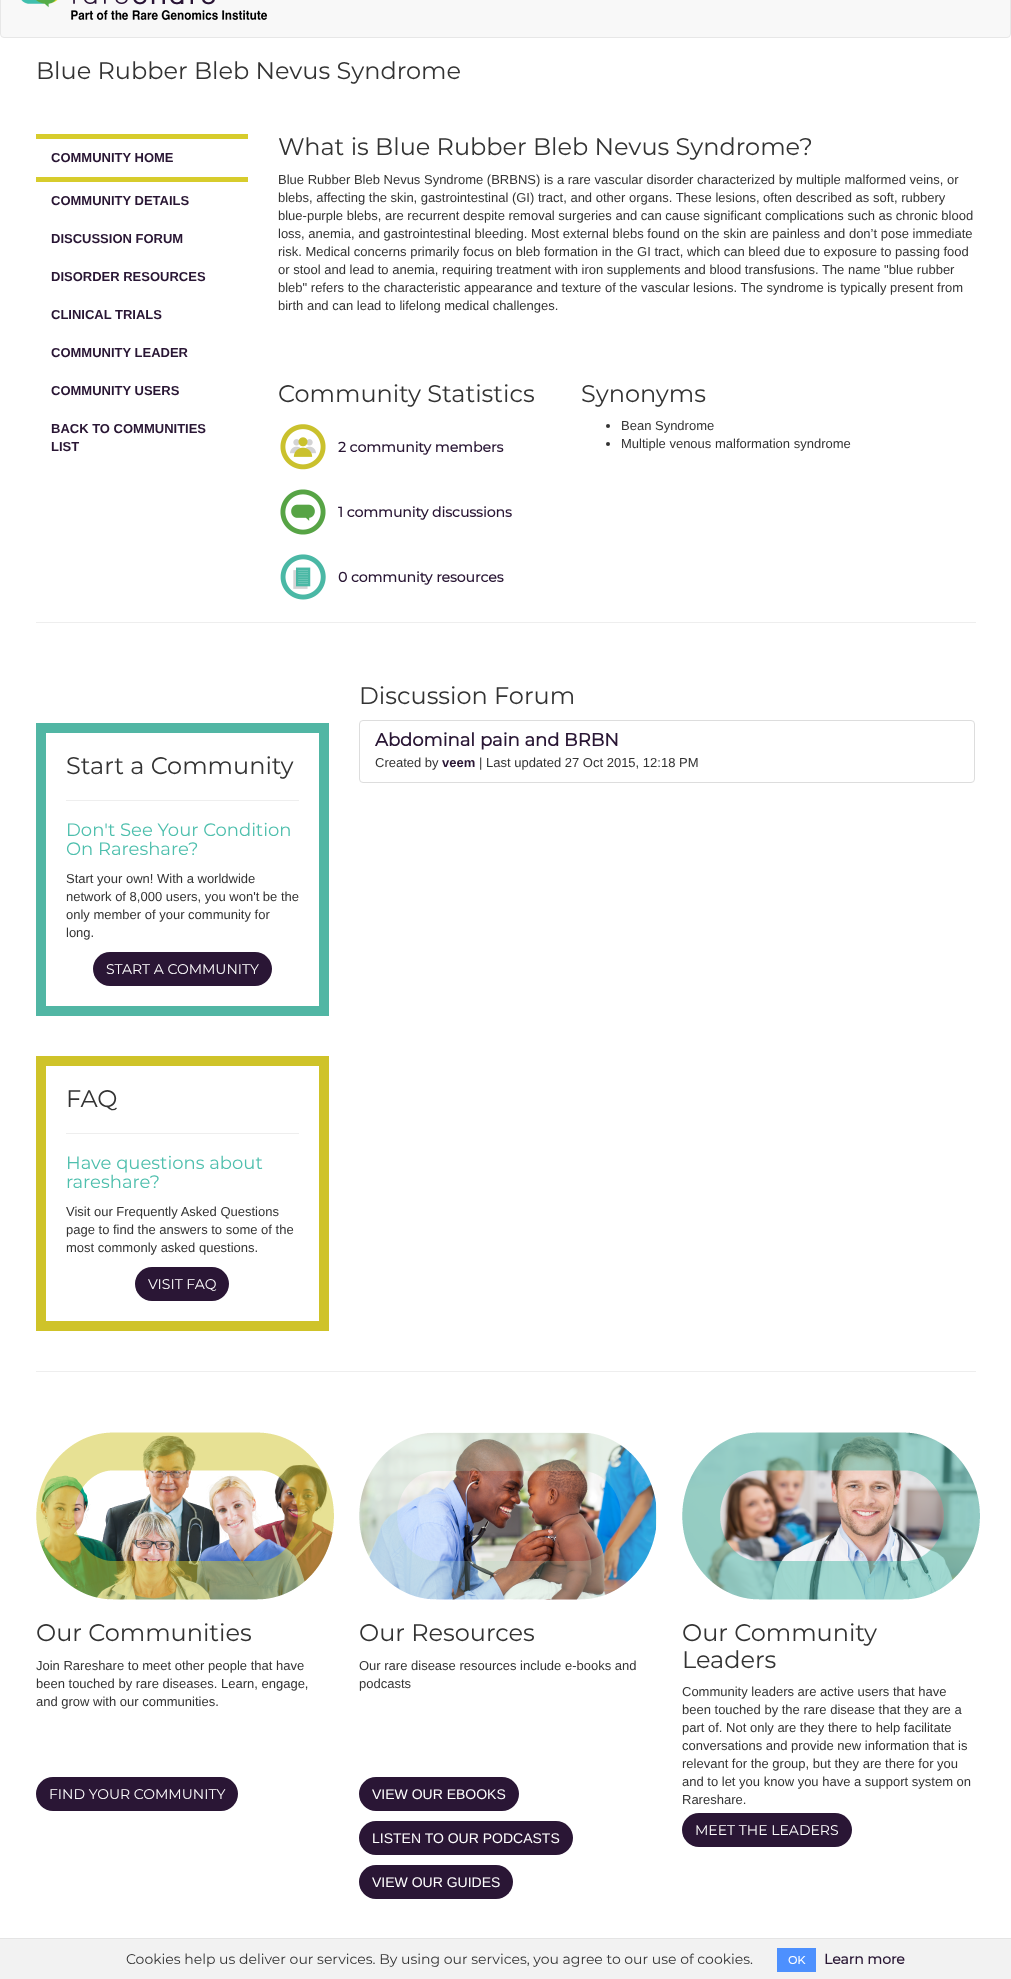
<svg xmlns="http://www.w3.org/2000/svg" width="1011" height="1979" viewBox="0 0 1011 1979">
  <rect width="100%" height="100%" fill="#fff"/>
  <rect x="0.5" y="-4.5" width="1010" height="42" rx="3.5" fill="#f8f8f8" stroke="#e7e7e7"/>
  <image x="21" y="0" width="246" height="20" href="img/1.png"/>
  <path d="M36 134h212v5H36z" fill="#d7cc2c"/>
  <path d="M36 177h212v5H36z" fill="#d7cc2c"/>
  <image x="280" y="424" width="46" height="46" href="img/2.png"/>
  <image x="280" y="489" width="46" height="46" href="img/3.png"/>
  <image x="280" y="554" width="46" height="46" href="img/4.png"/>
  <circle cx="608" cy="426" r="2" fill="#333"/>
  <circle cx="608" cy="444" r="2" fill="#333"/>
  <path d="M36 622h940v1H36z" fill="#eee"/>
  <rect x="359.5" y="720.5" width="615" height="62" rx="3.5" fill="none" stroke="#ddd"/>
  <path d="M41 728h283v283H41z" fill="none" stroke="#51b6a4" stroke-width="10"/>
  <path d="M66 800h233v1H66z" fill="#eee"/>
  <rect x="93" y="952" width="179" height="34" rx="17" fill="#2a1635"/>
  <path d="M41 1061h283v265H41z" fill="none" stroke="#cfc329" stroke-width="10"/>
  <path d="M66 1133h233v1H66z" fill="#eee"/>
  <rect x="135" y="1267" width="94" height="34" rx="17" fill="#2a1635"/>
  <path d="M36 1371h940v1H36z" fill="#eee"/>
  <image x="36" y="1432" width="298" height="168" href="img/5.png"/>
  <rect x="36" y="1777" width="202" height="34" rx="17" fill="#2a1635"/>
  <image x="359" y="1432" width="298" height="168" href="img/6.png"/>
  <rect x="359" y="1777" width="160" height="34" rx="17" fill="#2a1635"/>
  <rect x="359" y="1821" width="214" height="34" rx="17" fill="#2a1635"/>
  <rect x="359" y="1865" width="154" height="34" rx="17" fill="#2a1635"/>
  <image x="682" y="1432" width="298" height="168" href="img/7.png"/>
  <rect x="682" y="1813" width="170" height="34" rx="17" fill="#2a1635"/>
  <path d="M0 1939h1011v40H0z" fill="#f2f2f2"/>
  <path d="M0 1938h1011v1H0z" fill="#e4e4e4"/>
  <path d="M777 1948h39v24H777z" fill="#4d90fe"/>
  <text x="36" y="79" font-family="Montserrat" font-size="24" font-weight="100" fill="#333">Blue Rubber Bleb Nevus Syndrome</text>
  <g font-family="Liberation Sans" font-size="13" font-weight="bold" fill="#291634">
    <text x="51" y="162">COMMUNITY HOME</text>
    <text x="51" y="205">COMMUNITY DETAILS</text>
    <text x="51" y="243">DISCUSSION FORUM</text>
    <text x="51" y="281">DISORDER RESOURCES</text>
    <text x="51" y="319">CLINICAL TRIALS</text>
    <text x="51" y="357">COMMUNITY LEADER</text>
    <text x="51" y="395">COMMUNITY USERS</text>
    <text x="51" y="433">BACK TO COMMUNITIES</text>
    <text x="51" y="451">LIST</text>
  </g>
  <text x="278" y="155" font-family="Montserrat" font-size="24" font-weight="100" fill="#333">What is Blue Rubber Bleb Nevus Syndrome?</text>
  <g font-family="Liberation Sans" font-size="13" fill="#333">
    <text x="278" y="184">Blue Rubber Bleb Nevus Syndrome (BRBNS) is a rare vascular disorder characterized by multiple malformed veins, or</text>
    <text x="278" y="202">blebs, affecting the skin, gastrointestinal (GI) tract, and other organs. These lesions, often described as soft, rubbery</text>
    <text x="278" y="220">blue-purple blebs, are recurrent despite removal surgeries and can cause significant complications such as chronic blood</text>
    <text x="278" y="238">loss, anemia, and gastrointestinal bleeding. Most external blebs found on the skin are painless and don’t pose immediate</text>
    <text x="278" y="256">risk. Medical concerns primarily focus on bleb formation in the GI tract, which can bleed due to exposure to passing food</text>
    <text x="278" y="274">or stool and lead to anemia, requiring treatment with iron supplements and blood transfusions. The name "blue rubber</text>
    <text x="278" y="292">bleb" refers to the characteristic appearance and texture of the vascular lesions. The syndrome is typically present from</text>
    <text x="278" y="310">birth and can lead to lifelong medical challenges.</text>
  </g>
  <text x="278" y="402" font-family="Montserrat" font-size="24" font-weight="100" fill="#333">Community Statistics</text>
  <g font-family="Montserrat" font-size="14" font-weight="bold" fill="#291634">
    <text x="338" y="452">2 community members</text>
    <text x="338" y="517">1 community discussions</text>
    <text x="338" y="582">0 community resources</text>
  </g>
  <text x="581" y="402" font-family="Montserrat" font-size="24" font-weight="100" fill="#333">Synonyms</text>
  <g font-family="Liberation Sans" font-size="13" fill="#333">
    <text x="621" y="430">Bean Syndrome</text>
    <text x="621" y="448">Multiple venous malformation syndrome</text>
  </g>
  <text x="359" y="704" font-family="Montserrat" font-size="24" font-weight="100" fill="#333">Discussion Forum</text>
  <text x="375" y="746" font-family="Montserrat" font-size="18" font-weight="bold" fill="#291634">Abdominal pain and BRBN</text>
  <text x="375" y="767" font-family="Liberation Sans" font-size="13" fill="#333">Created by</text>
  <text x="442" y="767" font-family="Liberation Sans" font-size="13" font-weight="bold" fill="#291634">veem</text>
  <text x="479" y="767" font-family="Liberation Sans" font-size="13" fill="#333">| Last updated 27 Oct 2015, 12:18 PM</text>
  <text x="66" y="774" font-family="Montserrat" font-size="24" font-weight="100" fill="#333">Start a Community</text>
  <g font-family="Montserrat" font-size="18" font-weight="100" fill="#4ebfad">
    <text x="66" y="836">Don't See Your Condition</text>
    <text x="66" y="855">On Rareshare?</text>
  </g>
  <g font-family="Liberation Sans" font-size="13" fill="#333">
    <text x="66" y="883">Start your own! With a worldwide</text>
    <text x="66" y="901">network of 8,000 users, you won't be the</text>
    <text x="66" y="919">only member of your community for</text>
    <text x="66" y="937">long.</text>
  </g>
  <text x="106" y="974" font-family="Montserrat" font-size="14" font-weight="100" fill="#fff">START A COMMUNITY</text>
  <text x="66" y="1107" font-family="Montserrat" font-size="24" font-weight="100" fill="#333">FAQ</text>
  <g font-family="Montserrat" font-size="18" font-weight="100" fill="#4ebfad">
    <text x="66" y="1169">Have questions about</text>
    <text x="66" y="1188">rareshare?</text>
  </g>
  <g font-family="Liberation Sans" font-size="13" fill="#333">
    <text x="66" y="1216">Visit our Frequently Asked Questions</text>
    <text x="66" y="1234">page to find the answers to some of the</text>
    <text x="66" y="1252">most commonly asked questions.</text>
  </g>
  <text x="148" y="1289" font-family="Montserrat" font-size="14" font-weight="100" fill="#fff">VISIT FAQ</text>
  <text x="36" y="1641" font-family="Montserrat" font-size="24" font-weight="100" fill="#333">Our Communities</text>
  <g font-family="Liberation Sans" font-size="13" fill="#333">
    <text x="36" y="1670">Join Rareshare to meet other people that have</text>
    <text x="36" y="1688">been touched by rare diseases. Learn, engage,</text>
    <text x="36" y="1706">and grow with our communities.</text>
  </g>
  <text x="49" y="1799" font-family="Montserrat" font-size="14" font-weight="100" fill="#fff">FIND YOUR COMMUNITY</text>
  <text x="359" y="1641" font-family="Montserrat" font-size="24" font-weight="100" fill="#333">Our Resources</text>
  <g font-family="Liberation Sans" font-size="13" fill="#333">
    <text x="359" y="1670">Our rare disease resources include e-books and</text>
    <text x="359" y="1688">podcasts</text>
  </g>
  <g font-family="Liberation Sans" font-size="14" fill="#fff">
    <text x="372" y="1799">VIEW OUR EBOOKS</text>
    <text x="372" y="1843">LISTEN TO OUR PODCASTS</text>
    <text x="372" y="1887">VIEW OUR GUIDES</text>
  </g>
  <g font-family="Montserrat" font-size="24" font-weight="100" fill="#333">
    <text x="682" y="1641">Our Community</text>
    <text x="682" y="1668">Leaders</text>
  </g>
  <g font-family="Liberation Sans" font-size="13" fill="#333">
    <text x="682" y="1696">Community leaders are active users that have</text>
    <text x="682" y="1714">been touched by the rare disease that they are a</text>
    <text x="682" y="1732">part of. Not only are they there to help facilitate</text>
    <text x="682" y="1750">conversations and provide new information that is</text>
    <text x="682" y="1768">relevant for the group, but they are there for you</text>
    <text x="682" y="1786">and to let you know you have a support system on</text>
    <text x="682" y="1804">Rareshare.</text>
  </g>
  <text x="695" y="1835" font-family="Montserrat" font-size="14" font-weight="100" fill="#fff">MEET THE LEADERS</text>
  <text x="126" y="1964" font-family="Montserrat" font-size="14" font-weight="100" fill="#333">Cookies help us deliver our services. By using our services, you agree to our use of cookies.</text>
  <text x="788" y="1964" font-family="Montserrat" font-size="11" font-weight="bold" fill="#fff">OK</text>
  <text x="824" y="1964" font-family="Montserrat" font-size="14" font-weight="bold" fill="#291634">Learn more</text>
</svg>
